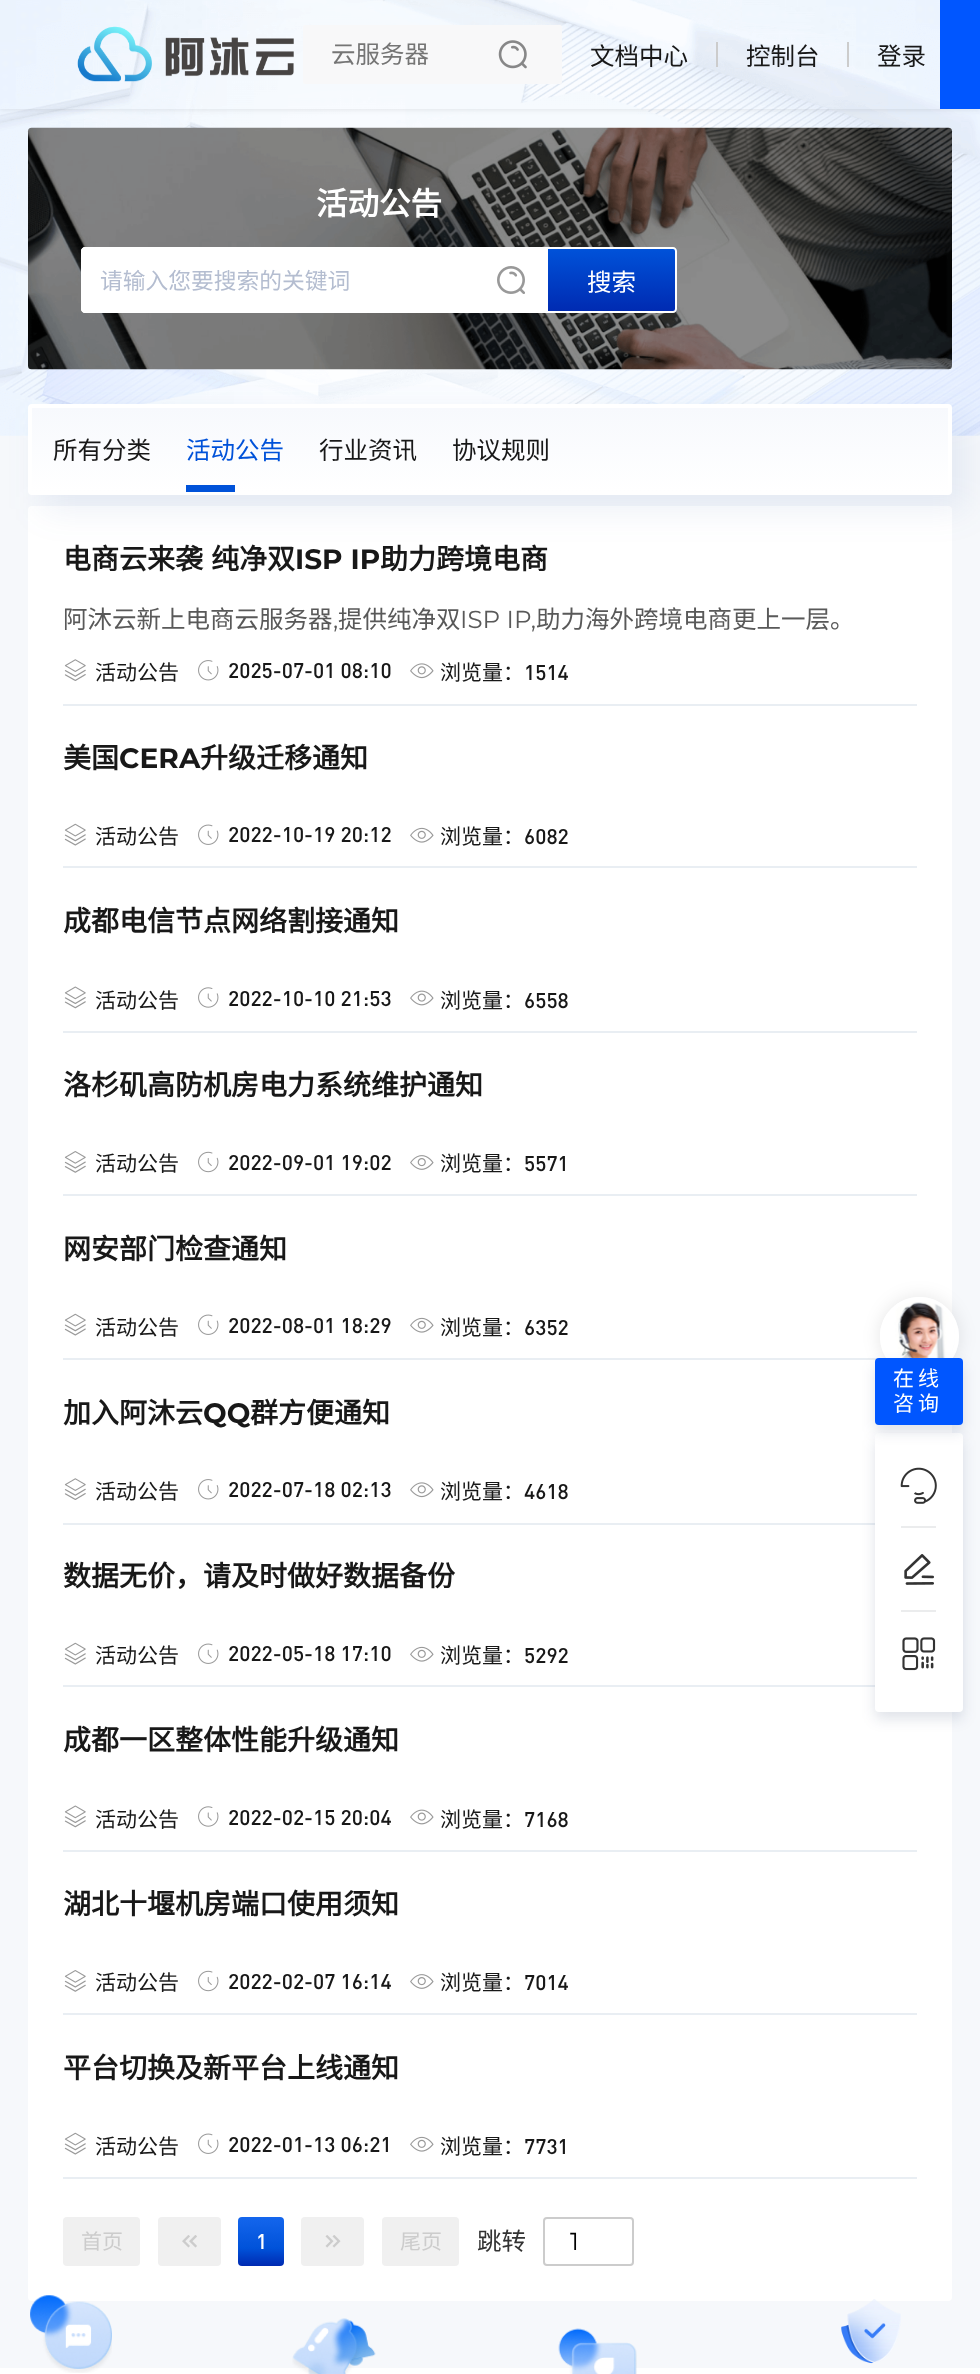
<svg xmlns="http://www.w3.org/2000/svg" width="980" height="2374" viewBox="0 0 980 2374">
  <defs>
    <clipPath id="clip1"><path d="M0 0H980V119H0ZM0 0H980V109H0Z" clip-rule="evenodd"/></clipPath>
    <clipPath id="clip2"><path d="M546 247H673C675 247 677 249 677 251V309C677 311 675 313 673 313H546Z"/></clipPath>
    <linearGradient id="g1" gradientUnits="userSpaceOnUse" x1="612" y1="249" x2="612" y2="312"><stop offset="0" stop-color="#0052d9"/><stop offset="1" stop-color="#002ab1"/></linearGradient>
    <linearGradient id="g2" gradientUnits="userSpaceOnUse" x1="490" y1="492" x2="490" y2="408"><stop offset="0" stop-color="#fff"/><stop offset="1" stop-color="#f7f9fd"/></linearGradient>
    <linearGradient id="g3" gradientUnits="userSpaceOnUse" x1="261" y1="2217" x2="261" y2="2266"><stop offset="0" stop-color="#1466ed"/><stop offset="0.64" stop-color="#0052d9"/><stop offset="1" stop-color="#002ab1"/></linearGradient>
    <clipPath id="clip3"><path d="M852 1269H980V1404H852ZM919.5 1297C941.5 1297 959 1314.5 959 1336.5C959 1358.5 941.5 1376 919.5 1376C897.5 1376 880 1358.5 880 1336.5C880 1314.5 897.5 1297 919.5 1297Z" clip-rule="evenodd"/></clipPath>
  </defs>
  <rect width="100%" height="100%" fill="#f6f8fb"/>
  <image x="0" y="0" width="980" height="436" href="img/1.png"/>
  <g clip-path="url(#clip1)">
    <path d="M0 2h980v108H0z" fill="#3131311a" filter="blur(2.5px)"/>
  </g>
  <image x="77" y="26" width="217" height="56" href="img/2.png"/>
  <rect x="303" y="25" width="259" height="59" rx="2" fill="#f8f8f9"/>
  <image x="498" y="40" width="29" height="29" href="img/3.png"/>
  <path d="M716 42h2v25H716z" fill="#ccc"/>
  <path d="M847 42h2v25H847z" fill="#ccc"/>
  <path d="M940 0h40v109H940z" fill="#0056ff"/>
  <image x="27" y="127" width="926" height="243" href="img/4.png"/>
  <path d="M85 247H546V313H85C83 313 81 311 81 309V251C81 249 83 247 85 247Z" fill="#fff"/>
  <image x="497" y="266" width="28" height="28" href="img/5.png"/>
  <path d="M85 248H545V312H85C83.5 312 82 310.5 82 309V251C82 249.5 83.5 248 85 248Z" fill="none" stroke="#fff" stroke-width="2"/>
  <g clip-path="url(#clip2)">
    <path d="M548 249h129v63H548z" fill="url(#g1)"/>
  </g>
  <path d="M547 248H673C674.5 248 676 249.5 676 251V309C676 310.5 674.5 312 673 312H547Z" fill="none" stroke="#fff" stroke-width="2"/>
  <rect x="28" y="506" width="924" height="1795" rx="4" fill="#fff"/>
  <rect x="42" y="418" width="924" height="91" rx="4" fill="#3763aa1a" filter="blur(17.5px)"/>
  <path d="M28 408h924v84H28z" fill="url(#g2)"/>
  <rect x="30" y="406" width="920" height="87" rx="2" fill="none" stroke="#fff" stroke-width="4"/>
  <path d="M186 485h49v7H186z" fill="#0052d9"/>
  <path d="M63 704h854v2H63z" fill="#e9eef3"/>
  <image x="64" y="659" width="22" height="22" href="img/6.png"/>
  <image x="198" y="660" width="21" height="21" href="img/7.png"/>
  <image x="410" y="663" width="24" height="16" href="img/8.png"/>
  <path d="M63 866h854v2H63z" fill="#e9eef3"/>
  <image x="64" y="823" width="22" height="23" href="img/9.png"/>
  <image x="198" y="824" width="21" height="21" href="img/10.png"/>
  <image x="410" y="827" width="24" height="16" href="img/11.png"/>
  <path d="M63 1031h854v2H63z" fill="#e9eef3"/>
  <image x="64" y="986" width="22" height="23" href="img/12.png"/>
  <image x="198" y="987" width="21" height="21" href="img/13.png"/>
  <image x="410" y="990" width="24" height="16" href="img/14.png"/>
  <path d="M63 1194h854v2H63z" fill="#e9eef3"/>
  <image x="64" y="1151" width="22" height="22" href="img/15.png"/>
  <image x="198" y="1151" width="21" height="22" href="img/16.png"/>
  <image x="410" y="1155" width="24" height="15" href="img/17.png"/>
  <path d="M63 1358h816v2H63z" fill="#e9eef3"/>
  <image x="64" y="1313" width="22" height="23" href="img/9.png"/>
  <image x="198" y="1314" width="21" height="21" href="img/10.png"/>
  <image x="410" y="1317" width="24" height="16" href="img/11.png"/>
  <path d="M63 1523h812v2H63z" fill="#e9eef3"/>
  <image x="64" y="1478" width="22" height="22" href="img/6.png"/>
  <image x="198" y="1479" width="21" height="21" href="img/7.png"/>
  <image x="410" y="1482" width="24" height="16" href="img/8.png"/>
  <path d="M63 1685h812v2H63z" fill="#e9eef3"/>
  <image x="64" y="1642" width="22" height="23" href="img/9.png"/>
  <image x="198" y="1643" width="21" height="21" href="img/10.png"/>
  <image x="410" y="1646" width="24" height="16" href="img/11.png"/>
  <path d="M63 1850h854v2H63z" fill="#e9eef3"/>
  <image x="64" y="1805" width="22" height="23" href="img/12.png"/>
  <image x="198" y="1806" width="21" height="21" href="img/13.png"/>
  <image x="410" y="1809" width="24" height="16" href="img/14.png"/>
  <path d="M63 2013h854v2H63z" fill="#e9eef3"/>
  <image x="64" y="1970" width="22" height="22" href="img/15.png"/>
  <image x="198" y="1970" width="21" height="22" href="img/16.png"/>
  <image x="410" y="1974" width="24" height="15" href="img/17.png"/>
  <path d="M63 2177h854v2H63z" fill="#e9eef3"/>
  <image x="64" y="2132" width="22" height="23" href="img/9.png"/>
  <image x="198" y="2133" width="21" height="21" href="img/10.png"/>
  <image x="410" y="2136" width="24" height="16" href="img/11.png"/>
  <rect x="63" y="2217" width="77" height="49" rx="4" fill="#f0f0f0"/>
  <rect x="158" y="2217" width="63" height="49" rx="4" fill="#f0f0f0"/>
  <image x="182" y="2235" width="15" height="13" href="img/18.png"/>
  <rect x="238" y="2217" width="46" height="49" rx="4" fill="url(#g3)"/>
  <rect x="301" y="2217" width="63" height="49" rx="4" fill="#f0f0f0"/>
  <image x="325" y="2235" width="16" height="13" href="img/19.png"/>
  <rect x="382" y="2217" width="77" height="49" rx="4" fill="#f0f0f0"/>
  <rect x="544" y="2218" width="89" height="47" rx="3" fill="none" stroke="#ccc" stroke-width="2"/>
  <g clip-path="url(#clip3)">
    <rect x="880" y="1297" width="79" height="79" rx="39.5" fill="#0000001a" filter="blur(9px)"/>
  </g>
  <circle cx="919.5" cy="1336.5" r="37.5" fill="none" stroke="#fff" stroke-width="4"/>
  <image x="892" y="1302" width="63" height="56" href="img/20.png"/>
  <rect x="875" y="1440" width="88" height="279" rx="4" fill="#031b4e1f" filter="blur(7px)"/>
  <rect x="875" y="1433" width="88" height="279" rx="4" fill="#fff"/>
  <rect x="875" y="1365" width="88" height="67" rx="4" fill="#031b4e1f" filter="blur(7px)"/>
  <rect x="875" y="1358" width="88" height="67" rx="4" fill="#0056ff"/>
  <image x="900" y="1467" width="37" height="37" href="img/21.png"/>
  <path d="M901 1526h35v2H901z" fill="#ebeced"/>
  <image x="904" y="1554" width="30" height="31" href="img/22.png"/>
  <path d="M901 1610h35v2H901z" fill="#ebeced"/>
  <image x="902" y="1637" width="34" height="34" href="img/23.png"/>
  <path d="M0 2368h980v6H0z" fill="#fff"/>
  <image x="30" y="2295" width="82" height="78" href="img/24.png"/>
  <image x="292" y="2318" width="84" height="56" href="img/25.png"/>
  <image x="558" y="2328" width="79" height="46" href="img/26.png"/>
  <image x="841" y="2299" width="60" height="65" href="img/27.png"/>
  <text x="331" y="63" font-family="Noto Sans CJK SC" font-size="24.5" fill="#757575">云服务器</text>
  <g font-family="Noto Sans CJK SC" font-size="24.5" fill="#181818">
    <text x="590" y="65">文档中心</text>
    <text x="746" y="65">控制台</text>
    <text x="877" y="65">登录</text>
  </g>
  <text x="316" y="215" font-family="Noto Sans CJK SC" font-size="31.5" font-weight="bold" fill="#fff">活动公告</text>
  <text x="100" y="289" font-family="Noto Sans CJK SC" font-size="22.75" fill="#b4bdd0">请输入您要搜索的关键词</text>
  <text x="587" y="291" font-family="Noto Sans CJK SC" font-size="24.5" fill="#fff">搜索</text>
  <text x="53" y="459" font-family="Noto Sans CJK SC" font-size="24.5" fill="#181818">所有分类</text>
  <text x="186" y="459" font-family="Noto Sans CJK SC" font-size="24.5" fill="#0052d9">活动公告</text>
  <g font-family="Noto Sans CJK SC" font-size="24.5" fill="#181818">
    <text x="319" y="459">行业资讯</text>
    <text x="452" y="459">协议规则</text>
  </g>
  <g font-family="Noto Sans CJK SC" font-size="28" font-weight="bold" fill="#181818">
    <text x="63" y="569">电商云来袭</text>
    <text x="211" y="569">纯净双</text>
  </g>
  <text x="295" y="569" font-family="Montserrat" font-size="28" font-weight="bold" fill="#181818">ISP IP</text>
  <text x="380" y="569" font-family="Noto Sans CJK SC" font-size="28" font-weight="bold" fill="#181818">助力跨境电商</text>
  <text x="63" y="628" font-family="Noto Sans CJK SC" font-size="24.5" fill="#595959">阿沐云新上电商云服务器 提供纯净双</text>
  <text x="460" y="628" font-family="Montserrat" font-size="24.5" fill="#595959">ISP IP,</text>
  <text x="536" y="628" font-family="Noto Sans CJK SC" font-size="24.5" fill="#595959">助力海外跨境电商更上一层。</text>
  <text x="333" y="628" font-family="Montserrat" font-size="24.5" fill="#595959">,</text>
  <text x="95" y="680" font-family="Noto Sans CJK SC" font-size="21" fill="#181818">活动公告</text>
  <text x="228" y="678" font-family="DIN" font-size="21" font-weight="500" fill="#181818">2025-07-01 08:10</text>
  <text x="440" y="680" font-family="Noto Sans CJK SC" font-size="21" fill="#181818">浏览量：</text>
  <text x="524" y="680" font-family="DIN" font-size="21" font-weight="500" fill="#181818">1514</text>
  <text x="63" y="768" font-family="Noto Sans CJK SC" font-size="28" font-weight="bold" fill="#181818">美国</text>
  <text x="119" y="768" font-family="Montserrat" font-size="28" font-weight="bold" fill="#181818">CERA</text>
  <text x="200" y="768" font-family="Noto Sans CJK SC" font-size="28" font-weight="bold" fill="#181818">升级迁移通知</text>
  <text x="95" y="844" font-family="Noto Sans CJK SC" font-size="21" fill="#181818">活动公告</text>
  <text x="228" y="842" font-family="DIN" font-size="21" font-weight="500" fill="#181818">2022-10-19 20:12</text>
  <text x="440" y="844" font-family="Noto Sans CJK SC" font-size="21" fill="#181818">浏览量：</text>
  <text x="524" y="844" font-family="DIN" font-size="21" font-weight="500" fill="#181818">6082</text>
  <text x="63" y="931" font-family="Noto Sans CJK SC" font-size="28" font-weight="bold" fill="#181818">成都电信节点网络割接通知</text>
  <text x="95" y="1008" font-family="Noto Sans CJK SC" font-size="21" fill="#181818">活动公告</text>
  <text x="228" y="1006" font-family="DIN" font-size="21" font-weight="500" fill="#181818">2022-10-10 21:53</text>
  <text x="440" y="1008" font-family="Noto Sans CJK SC" font-size="21" fill="#181818">浏览量：</text>
  <text x="524" y="1008" font-family="DIN" font-size="21" font-weight="500" fill="#181818">6558</text>
  <text x="63" y="1095" font-family="Noto Sans CJK SC" font-size="28" font-weight="bold" fill="#181818">洛杉矶高防机房电力系统维护通知</text>
  <text x="95" y="1171" font-family="Noto Sans CJK SC" font-size="21" fill="#181818">活动公告</text>
  <text x="228" y="1170" font-family="DIN" font-size="21" font-weight="500" fill="#181818">2022-09-01 19:02</text>
  <text x="440" y="1171" font-family="Noto Sans CJK SC" font-size="21" fill="#181818">浏览量：</text>
  <text x="524" y="1171" font-family="DIN" font-size="21" font-weight="500" fill="#181818">5571</text>
  <text x="63" y="1259" font-family="Noto Sans CJK SC" font-size="28" font-weight="bold" fill="#181818">网安部门检查通知</text>
  <text x="95" y="1335" font-family="Noto Sans CJK SC" font-size="21" fill="#181818">活动公告</text>
  <text x="228" y="1333" font-family="DIN" font-size="21" font-weight="500" fill="#181818">2022-08-01 18:29</text>
  <text x="440" y="1335" font-family="Noto Sans CJK SC" font-size="21" fill="#181818">浏览量：</text>
  <text x="524" y="1335" font-family="DIN" font-size="21" font-weight="500" fill="#181818">6352</text>
  <text x="63" y="1423" font-family="Noto Sans CJK SC" font-size="28" font-weight="bold" fill="#181818">加入阿沐云</text>
  <text x="203" y="1423" font-family="Montserrat" font-size="28" font-weight="bold" fill="#181818">QQ</text>
  <text x="250" y="1423" font-family="Noto Sans CJK SC" font-size="28" font-weight="bold" fill="#181818">群方便通知</text>
  <text x="95" y="1499" font-family="Noto Sans CJK SC" font-size="21" fill="#181818">活动公告</text>
  <text x="228" y="1497" font-family="DIN" font-size="21" font-weight="500" fill="#181818">2022-07-18 02:13</text>
  <text x="440" y="1499" font-family="Noto Sans CJK SC" font-size="21" fill="#181818">浏览量：</text>
  <text x="524" y="1499" font-family="DIN" font-size="21" font-weight="500" fill="#181818">4618</text>
  <text x="63" y="1586" font-family="Noto Sans CJK SC" font-size="28" font-weight="bold" fill="#181818">数据无价，请及时做好数据备份</text>
  <text x="95" y="1663" font-family="Noto Sans CJK SC" font-size="21" fill="#181818">活动公告</text>
  <text x="228" y="1661" font-family="DIN" font-size="21" font-weight="500" fill="#181818">2022-05-18 17:10</text>
  <text x="440" y="1663" font-family="Noto Sans CJK SC" font-size="21" fill="#181818">浏览量：</text>
  <text x="524" y="1663" font-family="DIN" font-size="21" font-weight="500" fill="#181818">5292</text>
  <text x="63" y="1750" font-family="Noto Sans CJK SC" font-size="28" font-weight="bold" fill="#181818">成都一区整体性能升级通知</text>
  <text x="95" y="1827" font-family="Noto Sans CJK SC" font-size="21" fill="#181818">活动公告</text>
  <text x="228" y="1825" font-family="DIN" font-size="21" font-weight="500" fill="#181818">2022-02-15 20:04</text>
  <text x="440" y="1827" font-family="Noto Sans CJK SC" font-size="21" fill="#181818">浏览量：</text>
  <text x="524" y="1827" font-family="DIN" font-size="21" font-weight="500" fill="#181818">7168</text>
  <text x="63" y="1914" font-family="Noto Sans CJK SC" font-size="28" font-weight="bold" fill="#181818">湖北十堰机房端口使用须知</text>
  <text x="95" y="1990" font-family="Noto Sans CJK SC" font-size="21" fill="#181818">活动公告</text>
  <text x="228" y="1989" font-family="DIN" font-size="21" font-weight="500" fill="#181818">2022-02-07 16:14</text>
  <text x="440" y="1990" font-family="Noto Sans CJK SC" font-size="21" fill="#181818">浏览量：</text>
  <text x="524" y="1990" font-family="DIN" font-size="21" font-weight="500" fill="#181818">7014</text>
  <text x="63" y="2078" font-family="Noto Sans CJK SC" font-size="28" font-weight="bold" fill="#181818">平台切换及新平台上线通知</text>
  <text x="95" y="2154" font-family="Noto Sans CJK SC" font-size="21" fill="#181818">活动公告</text>
  <text x="228" y="2152" font-family="DIN" font-size="21" font-weight="500" fill="#181818">2022-01-13 06:21</text>
  <text x="440" y="2154" font-family="Noto Sans CJK SC" font-size="21" fill="#181818">浏览量：</text>
  <text x="524" y="2154" font-family="DIN" font-size="21" font-weight="500" fill="#181818">7731</text>
  <text x="81" y="2249" font-family="Noto Sans CJK SC" font-size="21" fill="#ccc">首页</text>
  <text x="256" y="2249" font-family="DIN" font-size="21" font-weight="500" fill="#fff">1</text>
  <text x="400" y="2249" font-family="Noto Sans CJK SC" font-size="21" fill="#ccc">尾页</text>
  <text x="477" y="2250" font-family="Noto Sans CJK SC" font-size="24.5" fill="#333">跳转</text>
  <text x="570" y="2250" font-family="Montserrat" font-size="24.5" fill="#000">1</text>
  <g font-family="Noto Sans CJK SC" font-size="21" letter-spacing="4" fill="#fff">
    <text x="893" y="1386">在线</text>
    <text x="893" y="1411">咨询</text>
  </g>
</svg>
